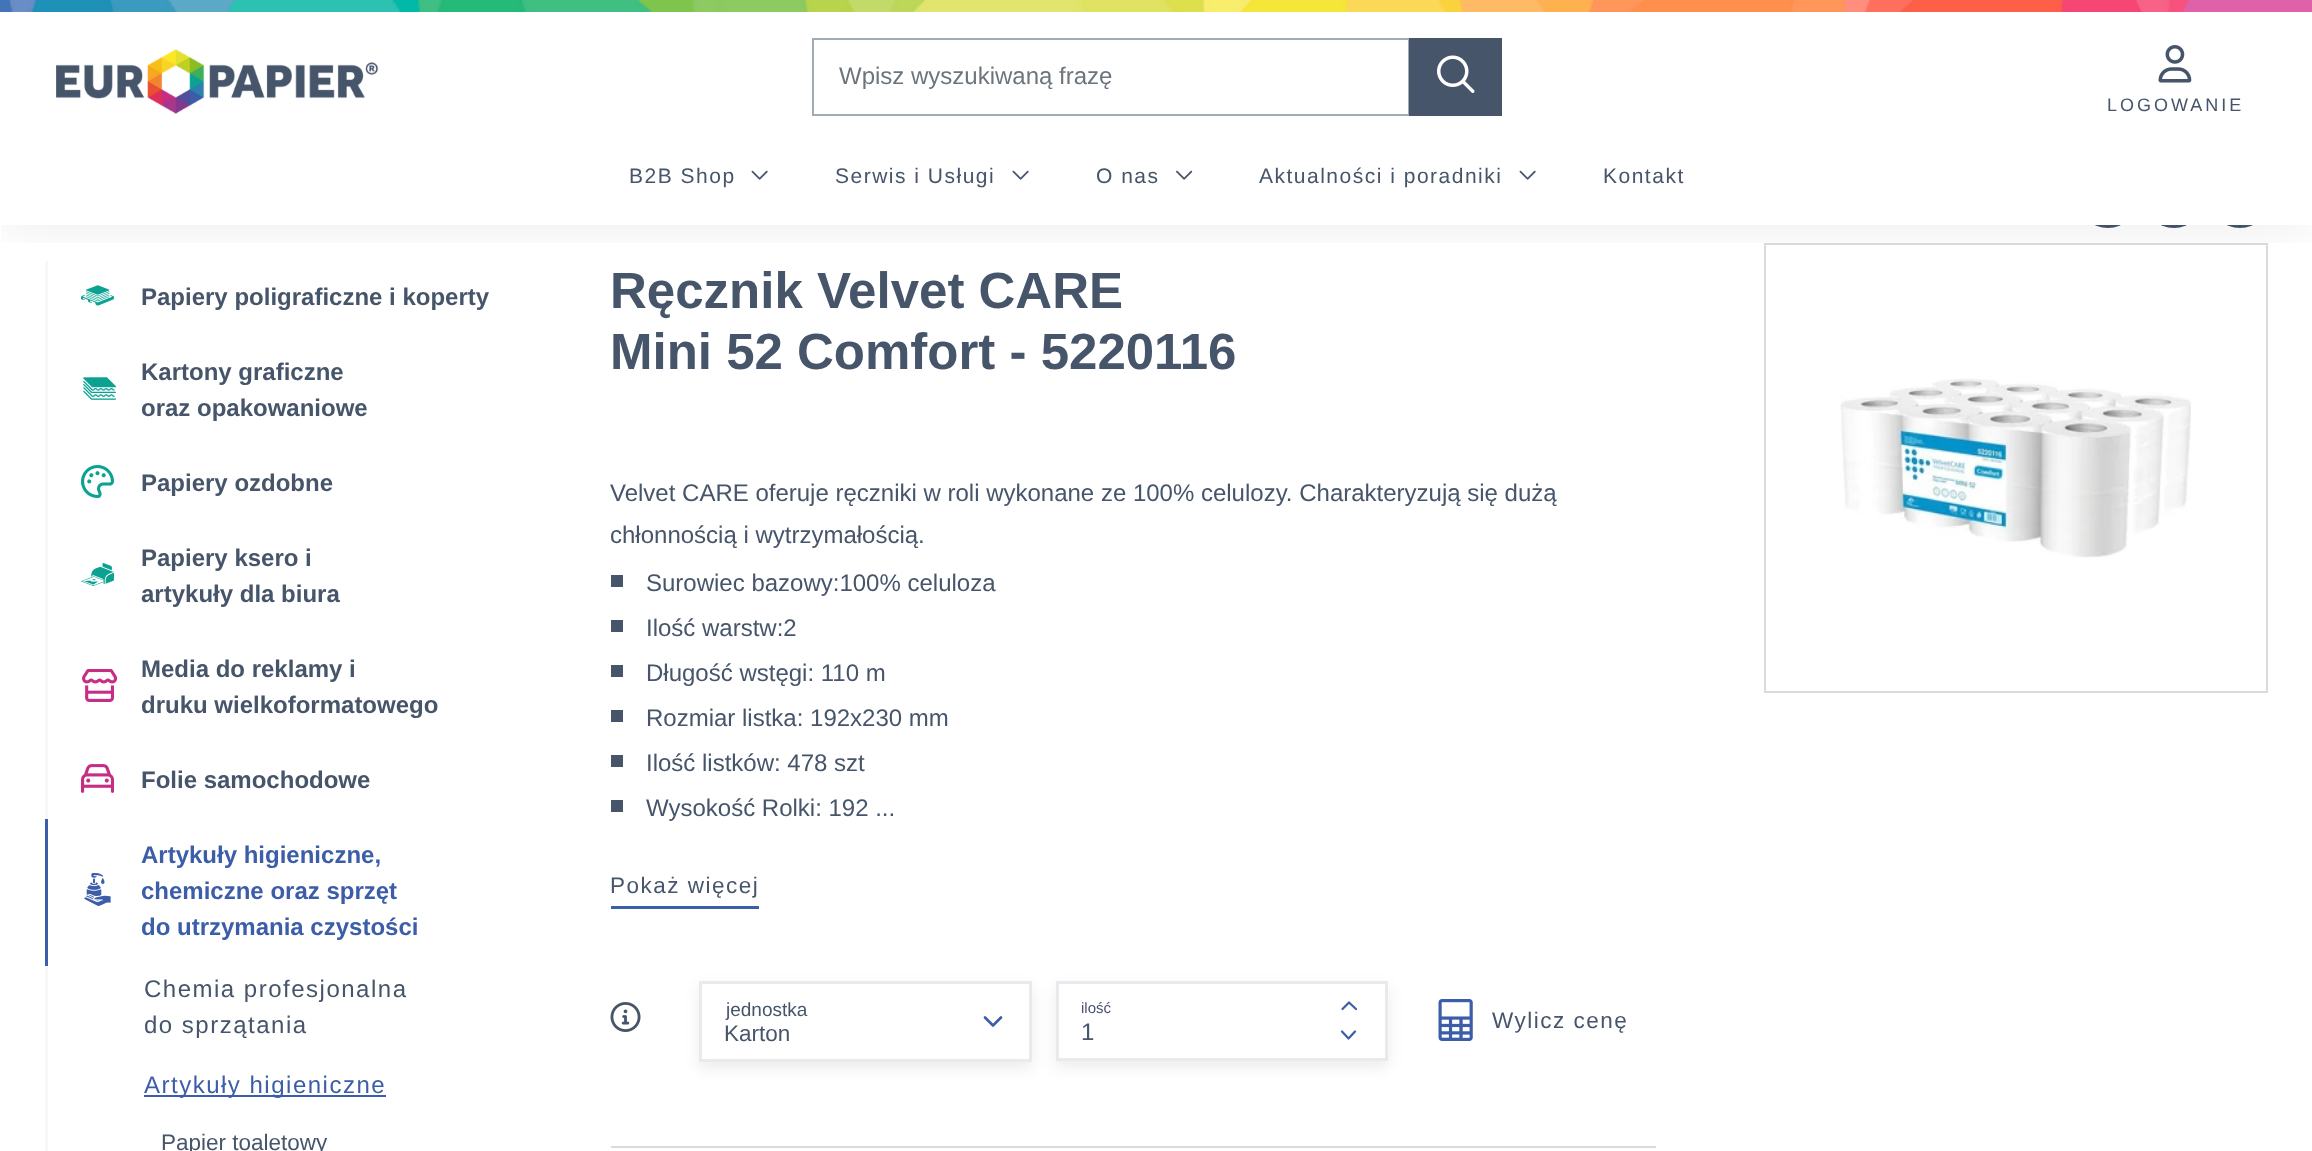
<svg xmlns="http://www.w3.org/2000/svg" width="2312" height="1151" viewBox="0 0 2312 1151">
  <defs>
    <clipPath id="clip1"><path d="M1 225h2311v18H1z"/></clipPath>
    <clipPath id="clip2"><path d="M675 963H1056V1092H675ZM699 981H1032V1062H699Z" clip-rule="evenodd"/></clipPath>
  </defs>
  <rect width="100%" height="100%" fill="#fff"/>
  <circle cx="2106" cy="197" r="29" fill="none" stroke="#46556a" stroke-width="2"/>
  <circle cx="2108" cy="198" r="30" fill="#46556a"/>
  <circle cx="2172" cy="197" r="29" fill="none" stroke="#46556a" stroke-width="2"/>
  <circle cx="2174" cy="198" r="30" fill="#46556a"/>
  <circle cx="2238" cy="197" r="29" fill="none" stroke="#46556a" stroke-width="2"/>
  <circle cx="2240" cy="198" r="30" fill="#46556a"/>
  <path d="M2076 167h194v58H2076z" fill="#fff"/>
  <image x="0" y="0" width="2312" height="12" href="img/1.png"/>
  <image x="56" y="49" width="323" height="65" href="img/2.png"/>
  <path d="M813 39h596v76H813z" fill="none" stroke="#a2aab4" stroke-width="2"/>
  <path d="M1409 38h93v78H1409z" fill="#46556a"/>
  <image x="1437" y="55" width="38" height="38" href="img/3.png"/>
  <image x="2158" y="45" width="34" height="38" href="img/4.png"/>
  <image x="751" y="170" width="17" height="10" href="img/5.png"/>
  <image x="1012" y="170" width="17" height="10" href="img/5.png"/>
  <image x="1176" y="170" width="17" height="10" href="img/6.png"/>
  <image x="1519" y="170" width="17" height="10" href="img/5.png"/>
  <path d="M45 261h3v890H45z" fill="#f8f8f8"/>
  <image x="81" y="285" width="33" height="21" href="img/7.png"/>
  <image x="1840" y="378" width="351" height="180" href="img/16.png"/>
  <path d="M1765 244h502v448H1765z" fill="none" stroke="#dadada" stroke-width="2"/>
  <g clip-path="url(#clip1)">
    <path d="M0 0h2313v225H0z" fill="#00000014" filter="blur(26px)"/>
  </g>
  <image x="83" y="377" width="33" height="23" href="img/8.png"/>
  <image x="81" y="465" width="33" height="33" href="img/9.png"/>
  <image x="81" y="563" width="33" height="23" href="img/10.png"/>
  <image x="82" y="669" width="36" height="33" href="img/11.png"/>
  <image x="81" y="764" width="33" height="29" href="img/12.png"/>
  <path d="M45 819h3v147H45z" fill="#3c5da8"/>
  <image x="84" y="873" width="27" height="33" href="img/13.png"/>
  <path d="M144 1095h242v2H144z" fill="#3c5da8"/>
  <path d="M611 575h12v12H611z" fill="#46556a"/>
  <path d="M611 620h12v12H611z" fill="#46556a"/>
  <path d="M611 665h12v12H611z" fill="#46556a"/>
  <path d="M611 710h12v12H611z" fill="#46556a"/>
  <path d="M611 755h12v12H611z" fill="#46556a"/>
  <path d="M611 800h12v12H611z" fill="#46556a"/>
  <path d="M611 906h148v3H611z" fill="#3c5da8"/>
  <image x="610" y="1002" width="31" height="30" href="img/14.png"/>
  <g clip-path="url(#clip2)">
    <path d="M699 987h333v81H699z" fill="#00000014" filter="blur(7.5px)"/>
  </g>
  <path d="M985 1017.5L993 1025.5L1001 1017.5" fill="none" stroke="#3c5da8" stroke-width="2.6" stroke-linecap="round" stroke-linejoin="round"/>
  <path d="M700.5 982.5h330v78H700.5z" fill="none" stroke="#eaeaee" stroke-width="3"/>
  <path d="M1056 987h332v80H1056z" fill="#00000014" filter="blur(7.5px)"/>
  <path d="M1057.5 982.5h329v77H1057.5z" fill="#fff" stroke="#eaeaee" stroke-width="3"/>
  <path d="M1342 1031.5L1348.5 1038.5L1355 1031.5M1356 1009L1349 1002.5L1342.5 1009" fill="none" stroke="#3c5da8" stroke-width="2.2" stroke-linecap="round" stroke-linejoin="round"/>
  <image x="1438" y="999" width="35" height="42" href="img/15.png"/>
  <path d="M611 1146h1045v2H611z" fill="#dadada"/>
  <text x="839" y="84" font-family="Liberation Sans" font-size="24" fill="#6c757d">Wpisz wyszukiwaną frazę</text>
  <text x="2107" y="111" font-family="Liberation Sans" font-size="18" letter-spacing="3" fill="#46556a">LOGOWANIE</text>
  <g font-family="Liberation Sans" font-size="21" letter-spacing="1.5" fill="#46556a">
    <text x="629" y="183">B2B Shop</text>
    <text x="835" y="183">Serwis i Usługi</text>
    <text x="1096" y="183">O nas</text>
    <text x="1259" y="183">Aktualności i poradniki</text>
    <text x="1603" y="183">Kontakt</text>
  </g>
  <g font-family="Liberation Sans" font-size="24" font-weight="bold" fill="#46556a">
    <text x="141" y="305">Papiery poligraficzne i koperty</text>
    <text x="141" y="380">Kartony graficzne</text>
    <text x="141" y="416">oraz opakowaniowe</text>
    <text x="141" y="491">Papiery ozdobne</text>
    <text x="141" y="566">Papiery ksero i</text>
    <text x="141" y="602">artykuły dla biura</text>
    <text x="141" y="677">Media do reklamy i</text>
    <text x="141" y="713">druku wielkoformatowego</text>
    <text x="141" y="788">Folie samochodowe</text>
  </g>
  <g font-family="Liberation Sans" font-size="24" font-weight="bold" fill="#3c5da8">
    <text x="141" y="863">Artykuły higieniczne,</text>
    <text x="141" y="899">chemiczne oraz sprzęt</text>
    <text x="141" y="935">do utrzymania czystości</text>
  </g>
  <g font-family="Liberation Sans" font-size="24" letter-spacing="1.5" fill="#46556a">
    <text x="144" y="997">Chemia profesjonalna</text>
    <text x="144" y="1033">do sprzątania</text>
  </g>
  <text x="144" y="1093" font-family="Liberation Sans" font-size="24" letter-spacing="1.5" fill="#3c5da8">Artykuły higieniczne</text>
  <text x="161" y="1150" font-family="Liberation Sans" font-size="22.5" fill="#46556a">Papier toaletowy</text>
  <g font-family="Liberation Sans" font-size="51" font-weight="bold" fill="#46556a">
    <text x="610" y="308">Ręcznik Velvet CARE</text>
    <text x="610" y="369">Mini 52 Comfort - 5220116</text>
  </g>
  <g font-family="Liberation Sans" font-size="24" fill="#46556a">
    <text x="610" y="501">Velvet CARE oferuje ręczniki w roli wykonane ze 100% celulozy. Charakteryzują się dużą</text>
    <text x="610" y="543">chłonnością i wytrzymałością.</text>
    <text x="646" y="591">Surowiec bazowy:100% celuloza</text>
    <text x="646" y="636">Ilość warstw:2</text>
    <text x="646" y="681">Długość wstęgi: 110 m</text>
    <text x="646" y="726">Rozmiar listka: 192x230 mm</text>
    <text x="646" y="771">Ilość listków: 478 szt</text>
    <text x="646" y="816">Wysokość Rolki: 192 ...</text>
  </g>
  <text x="610" y="893" font-family="Liberation Sans" font-size="22.5" letter-spacing="1.5" fill="#46556a">Pokaż więcej</text>
  <text x="726" y="1016" font-family="Liberation Sans" font-size="19" fill="#46556a">jednostka</text>
  <text x="724" y="1041" font-family="Liberation Sans" font-size="22.5" fill="#46556a">Karton</text>
  <text x="1081" y="1013" font-family="Liberation Sans" font-size="15" fill="#46556a">ilość</text>
  <text x="1081" y="1040" font-family="Liberation Sans" font-size="24" fill="#46556a">1</text>
  <text x="1492" y="1028" font-family="Liberation Sans" font-size="22.5" letter-spacing="1.5" fill="#46556a">Wylicz cenę</text>
</svg>
